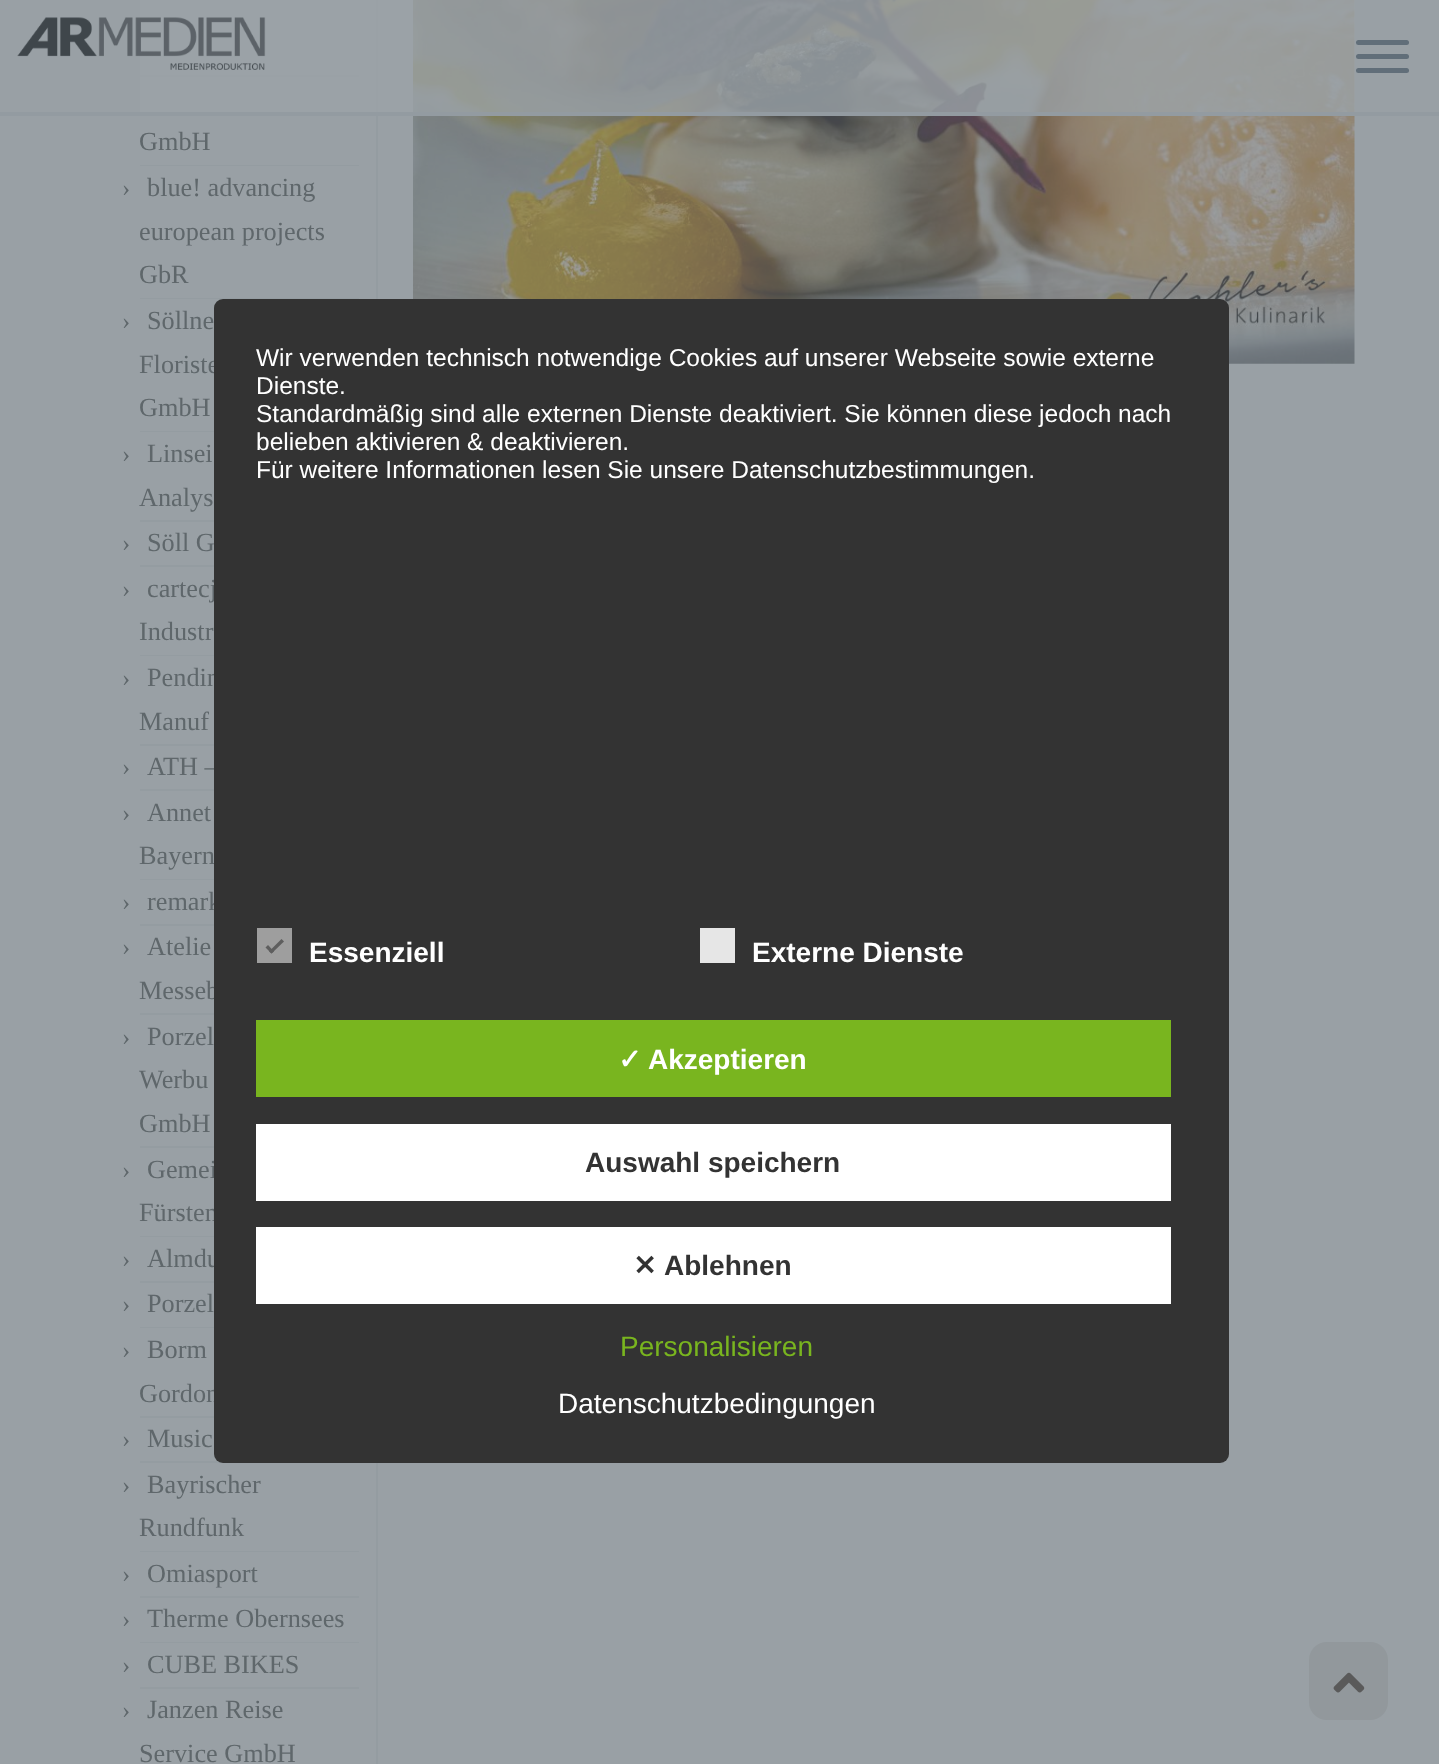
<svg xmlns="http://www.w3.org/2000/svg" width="1439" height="1764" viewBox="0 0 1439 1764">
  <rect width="100%" height="100%" fill="#99a0a5"/>
  <path d="M376 0h2v1764H376z" fill="#949ca1"/>
  <path d="M140 75h219v2H140z" fill="#949ca1"/>
  <image x="413" y="0" width="942" height="364" href="img/2.png"/>
  <path d="M140 0h1215v112H140z" fill="#9ba2a7cc"/>
  <path d="M0 112h1439v4H0z" fill="#939ba1"/>
  <image x="17" y="17" width="249" height="53" href="img/1.png"/>
  <rect x="1356" y="40" width="53" height="5" rx="2.5" fill="#616e79"/>
  <rect x="1356" y="54" width="53" height="5" rx="2.5" fill="#616e79"/>
  <rect x="1356" y="68" width="53" height="5" rx="2.5" fill="#616e79"/>
  <path d="M140 165h219v1H140z" fill="#949ca1"/>
  <path d="M140 298h219v1H140z" fill="#949ca1"/>
  <path d="M140 431h74v1H140z" fill="#949ca1"/>
  <path d="M140 520h74v2H140z" fill="#949ca1"/>
  <path d="M140 565h74v2H140z" fill="#949ca1"/>
  <path d="M140 655h74v1H140z" fill="#949ca1"/>
  <path d="M140 744h74v2H140z" fill="#949ca1"/>
  <path d="M140 789h74v2H140z" fill="#949ca1"/>
  <path d="M140 879h74v1H140z" fill="#949ca1"/>
  <path d="M140 924h74v2H140z" fill="#949ca1"/>
  <path d="M140 1013h74v2H140z" fill="#949ca1"/>
  <path d="M140 1146h74v2H140z" fill="#949ca1"/>
  <path d="M140 1236h74v1H140z" fill="#949ca1"/>
  <path d="M140 1281h74v2H140z" fill="#949ca1"/>
  <path d="M140 1327h74v1H140z" fill="#949ca1"/>
  <path d="M140 1416h74v2H140z" fill="#949ca1"/>
  <path d="M140 1461h83v2H140z" fill="#949ca1"/>
  <path d="M140 1551h219v1H140z" fill="#949ca1"/>
  <path d="M140 1596h219v2H140z" fill="#949ca1"/>
  <path d="M140 1642h219v1H140z" fill="#949ca1"/>
  <path d="M140 1687h219v2H140z" fill="#949ca1"/>
  <rect x="1309" y="1642" width="79" height="78" rx="18" fill="#92989c"/>
  <image x="1333" y="1672" width="32" height="21" href="img/3.png"/>
  <text x="139" y="150" font-family="Liberation Serif" font-size="26.25" fill="#5f676b">GmbH</text>
  <text x="122" y="196" font-family="Liberation Serif" font-size="24.5" fill="#5f676b">›</text>
  <g font-family="Liberation Serif" font-size="26.25" fill="#5f676b">
    <text x="147" y="196">blue! advancing</text>
    <text x="139" y="240">european projects</text>
    <text x="139" y="283">GbR</text>
  </g>
  <text x="122" y="329" font-family="Liberation Serif" font-size="24.5" fill="#5f676b">›</text>
  <g font-family="Liberation Serif" font-size="26.25" fill="#5f676b">
    <text x="147" y="329">Söllne</text>
    <text x="139" y="373">Floriste</text>
    <text x="139" y="416">GmbH</text>
  </g>
  <text x="122" y="462" font-family="Liberation Serif" font-size="24.5" fill="#5f676b">›</text>
  <g font-family="Liberation Serif" font-size="26.25" fill="#5f676b">
    <text x="147" y="462">Linsei</text>
    <text x="139" y="506">Analys</text>
  </g>
  <text x="122" y="551" font-family="Liberation Serif" font-size="24.5" fill="#5f676b">›</text>
  <text x="147" y="551" font-family="Liberation Serif" font-size="26.25" fill="#5f676b">Söll G</text>
  <text x="122" y="597" font-family="Liberation Serif" font-size="24.5" fill="#5f676b">›</text>
  <g font-family="Liberation Serif" font-size="26.25" fill="#5f676b">
    <text x="147" y="597">cartecj</text>
    <text x="139" y="640">Industr</text>
  </g>
  <text x="122" y="686" font-family="Liberation Serif" font-size="24.5" fill="#5f676b">›</text>
  <g font-family="Liberation Serif" font-size="26.25" fill="#5f676b">
    <text x="147" y="686">Pendin</text>
    <text x="139" y="730">Manuf</text>
  </g>
  <text x="122" y="775" font-family="Liberation Serif" font-size="24.5" fill="#5f676b">›</text>
  <text x="147" y="775" font-family="Liberation Serif" font-size="26.25" fill="#5f676b">ATH –</text>
  <text x="122" y="821" font-family="Liberation Serif" font-size="24.5" fill="#5f676b">›</text>
  <g font-family="Liberation Serif" font-size="26.25" fill="#5f676b">
    <text x="147" y="821">Annet</text>
    <text x="139" y="864">Bayern</text>
  </g>
  <text x="122" y="910" font-family="Liberation Serif" font-size="24.5" fill="#5f676b">›</text>
  <text x="147" y="910" font-family="Liberation Serif" font-size="26.25" fill="#5f676b">remark</text>
  <text x="122" y="955" font-family="Liberation Serif" font-size="24.5" fill="#5f676b">›</text>
  <g font-family="Liberation Serif" font-size="26.25" fill="#5f676b">
    <text x="147" y="955">Atelie</text>
    <text x="139" y="999">Messeb</text>
  </g>
  <text x="122" y="1045" font-family="Liberation Serif" font-size="24.5" fill="#5f676b">›</text>
  <g font-family="Liberation Serif" font-size="26.25" fill="#5f676b">
    <text x="147" y="1045">Porzel</text>
    <text x="139" y="1088">Werbu</text>
    <text x="139" y="1132">GmbH</text>
  </g>
  <text x="122" y="1178" font-family="Liberation Serif" font-size="24.5" fill="#5f676b">›</text>
  <g font-family="Liberation Serif" font-size="26.25" fill="#5f676b">
    <text x="147" y="1178">Gemei</text>
    <text x="139" y="1221">Fürsten</text>
  </g>
  <text x="122" y="1267" font-family="Liberation Serif" font-size="24.5" fill="#5f676b">›</text>
  <text x="147" y="1267" font-family="Liberation Serif" font-size="26.25" fill="#5f676b">Almdu</text>
  <text x="122" y="1312" font-family="Liberation Serif" font-size="24.5" fill="#5f676b">›</text>
  <text x="147" y="1312" font-family="Liberation Serif" font-size="26.25" fill="#5f676b">Porzel</text>
  <text x="122" y="1358" font-family="Liberation Serif" font-size="24.5" fill="#5f676b">›</text>
  <g font-family="Liberation Serif" font-size="26.25" fill="#5f676b">
    <text x="147" y="1358">Borm</text>
    <text x="139" y="1402">Gordon</text>
  </g>
  <text x="122" y="1447" font-family="Liberation Serif" font-size="24.5" fill="#5f676b">›</text>
  <text x="147" y="1447" font-family="Liberation Serif" font-size="26.25" fill="#5f676b">Music</text>
  <text x="122" y="1493" font-family="Liberation Serif" font-size="24.5" fill="#5f676b">›</text>
  <g font-family="Liberation Serif" font-size="26.25" fill="#5f676b">
    <text x="147" y="1493">Bayrischer</text>
    <text x="139" y="1536">Rundfunk</text>
  </g>
  <text x="122" y="1582" font-family="Liberation Serif" font-size="24.5" fill="#5f676b">›</text>
  <text x="147" y="1582" font-family="Liberation Serif" font-size="26.25" fill="#5f676b">Omiasport</text>
  <text x="122" y="1627" font-family="Liberation Serif" font-size="24.5" fill="#5f676b">›</text>
  <text x="147" y="1627" font-family="Liberation Serif" font-size="26.25" fill="#5f676b">Therme Obernsees</text>
  <text x="122" y="1673" font-family="Liberation Serif" font-size="24.5" fill="#5f676b">›</text>
  <text x="147" y="1673" font-family="Liberation Serif" font-size="26.25" fill="#5f676b">CUBE BIKES</text>
  <text x="122" y="1718" font-family="Liberation Serif" font-size="24.5" fill="#5f676b">›</text>
  <g font-family="Liberation Serif" font-size="26.25" fill="#5f676b">
    <text x="147" y="1718">Janzen Reise</text>
    <text x="139" y="1762">Service GmbH</text>
  </g>
  <rect x="214" y="299" width="1015" height="1164" rx="9" fill="#333"/>
  <g font-family="Liberation Sans" font-size="24.5" fill="#fff">
    <text x="256" y="366">Wir verwenden technisch notwendige Cookies auf unserer Webseite sowie externe</text>
    <text x="256" y="394">Dienste.</text>
    <text x="256" y="422">Standardmäßig sind alle externen Dienste deaktiviert. Sie können diese jedoch nach</text>
    <text x="256" y="450">belieben aktivieren &amp; deaktivieren.</text>
    <text x="256" y="478">Für weitere Informationen lesen Sie unsere Datenschutzbestimmungen.</text>
  </g>
  <path d="M257 928h35v35H257z" fill="#9e9e9e"/>
  <path d="M281.5 939L284 941.5L271.5 953.5L269 951.5Z" fill="#5e5e5e"/>
  <path d="M268 945L274 951.5L271.5 953.5L265.5 947.5Z" fill="#5e5e5e"/>
  <text x="309" y="962" font-family="Liberation Sans" font-size="28" font-weight="bold" fill="#fff">Essenziell</text>
  <path d="M700 928h35v35H700z" fill="#e6e6e6"/>
  <text x="752" y="962" font-family="Liberation Sans" font-size="28" font-weight="bold" fill="#fff">Externe Dienste</text>
  <path d="M256 1020h915v77H256z" fill="#79b51f"/>
  <text x="618" y="1069" font-family="DejaVu Sans" font-size="28" font-weight="bold" fill="#fff">✓</text>
  <text x="648" y="1069" font-family="Liberation Sans" font-size="28" font-weight="bold" fill="#fff">Akzeptieren</text>
  <path d="M256 1124h915v77H256z" fill="#fff"/>
  <text x="585" y="1172" font-family="Liberation Sans" font-size="28" font-weight="bold" fill="#333">Auswahl speichern</text>
  <path d="M256 1227h915v77H256z" fill="#fff"/>
  <text x="633" y="1275" font-family="DejaVu Sans" font-size="28" font-weight="bold" fill="#333">✕</text>
  <text x="664" y="1275" font-family="Liberation Sans" font-size="28" font-weight="bold" fill="#333">Ablehnen</text>
  <text x="620" y="1356" font-family="Liberation Sans" font-size="28" fill="#79b51f">Personalisieren</text>
  <text x="558" y="1413" font-family="Liberation Sans" font-size="28" fill="#fff">Datenschutzbedingungen</text>
</svg>
